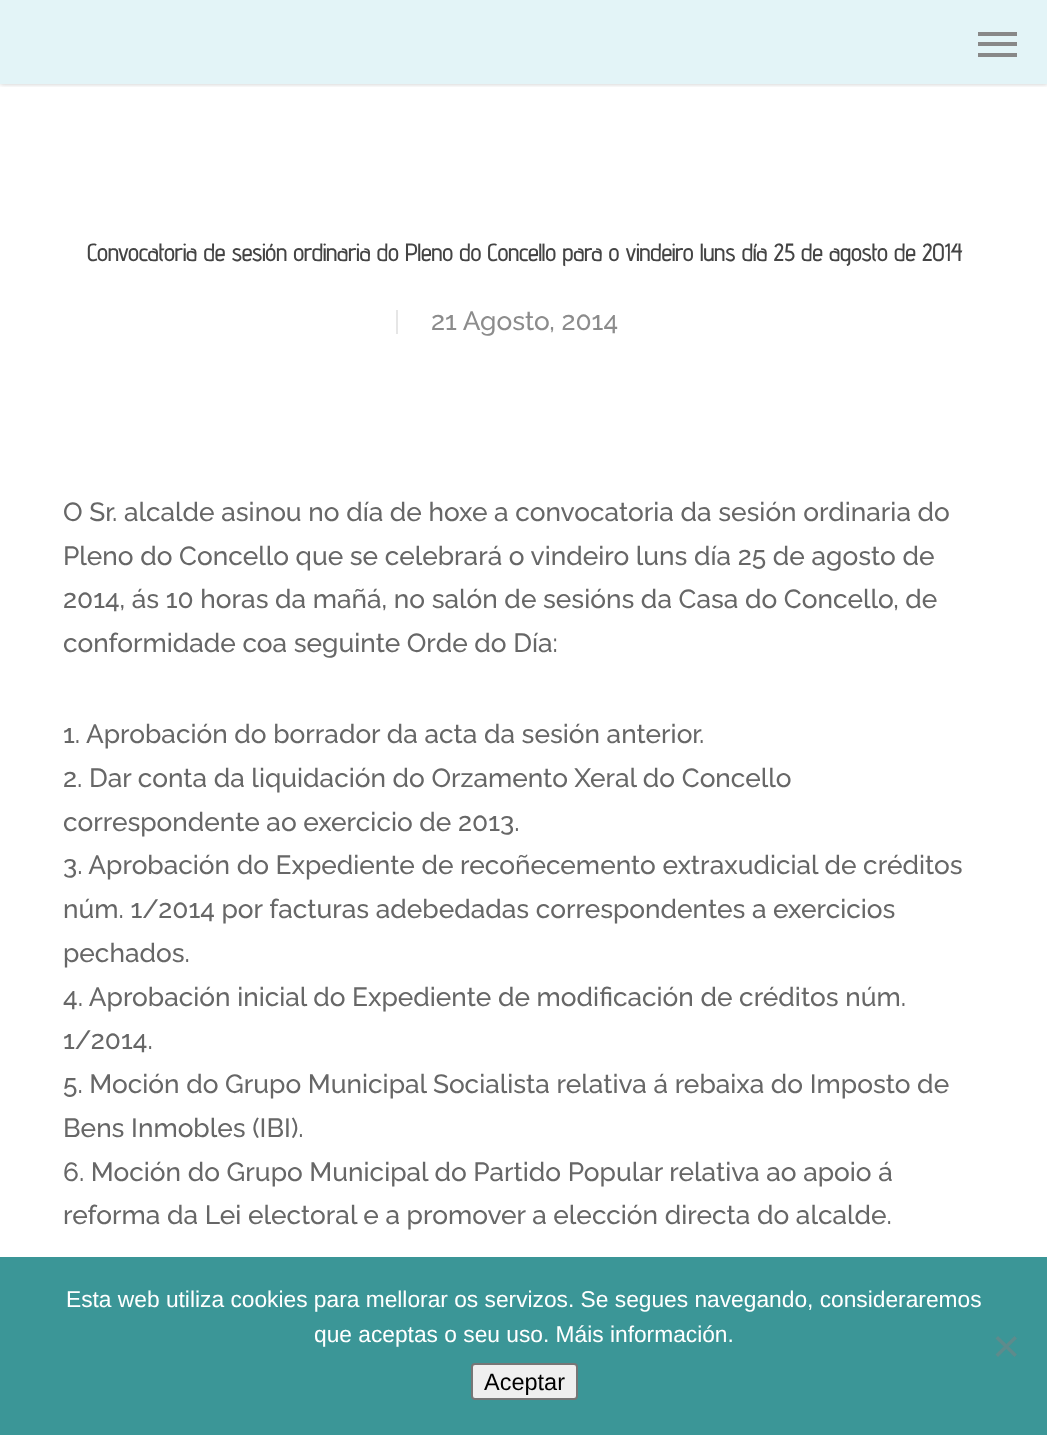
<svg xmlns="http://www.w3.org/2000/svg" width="1047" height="1435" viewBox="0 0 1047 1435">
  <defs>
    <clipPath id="clip1"><path d="M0 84h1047v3H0z"/></clipPath>
  </defs>
  <rect width="100%" height="100%" fill="#fff"/>
  <path d="M0 0h1047v84H0z" fill="#e3f4f7"/>
  <g clip-path="url(#clip1)">
    <path d="M0 0h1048v84H0z" fill="#00000038" filter="blur(2.5px)"/>
  </g>
  <path d="M978 32h39v4H978z" fill="#888"/>
  <path d="M978 53h39v4H978z" fill="#888"/>
  <path d="M978 42h39v4H978z" fill="#888"/>
  <path d="M396 310h2v24H396z" fill="#e6e6e6"/>
  <path d="M0 1257h1047v178H0z" fill="#3b9697"/>
  <path d="M1014.5 1336L1017 1338.5L998 1357L995.5 1354.5Z" fill="#5e8b8c"/>
  <path d="M995.5 1338.5L998 1336L1017 1354.5L1014.5 1357Z" fill="#5e8b8c"/>
  <rect x="472" y="1364" width="105" height="35" rx="3" fill="#efefef" stroke="#767676" stroke-width="2"/>
  <text x="87" y="261" font-family="Advent Pro" font-size="23.9" font-weight="bold" fill="#444">Convocatoria de sesión ordinaria do Pleno do Concello para o vindeiro luns día 25 de agosto de 2014</text>
  <text x="431" y="330" font-family="Raleway" font-size="26.25" font-weight="500" fill="#8c8c8c">21 Agosto, 2014</text>
  <g font-family="Raleway" font-size="26.25" font-weight="500" fill="#676767">
    <text x="63" y="521">O Sr. alcalde asinou no día de hoxe a convocatoria da sesión ordinaria do</text>
    <text x="63" y="565">Pleno do Concello que se celebrará o vindeiro luns día 25 de agosto de</text>
    <text x="63" y="608">2014, ás 10 horas da mañá, no salón de sesións da Casa do Concello, de</text>
    <text x="63" y="652">conformidade coa seguinte Orde do Día:</text>
    <text x="63" y="743">1. Aprobación do borrador da acta da sesión anterior.</text>
    <text x="63" y="787">2. Dar conta da liquidación do Orzamento Xeral do Concello</text>
    <text x="63" y="831">correspondente ao exercicio de 2013.</text>
    <text x="63" y="874">3. Aprobación do Expediente de recoñecemento extraxudicial de créditos</text>
    <text x="63" y="918">núm. 1/2014 por facturas adebedadas correspondentes a exercicios</text>
    <text x="63" y="962">pechados.</text>
    <text x="63" y="1006">4. Aprobación inicial do Expediente de modificación de créditos núm.</text>
    <text x="63" y="1049">1/2014.</text>
    <text x="63" y="1093">5. Moción do Grupo Municipal Socialista relativa á rebaixa do Imposto de</text>
    <text x="63" y="1137">Bens Inmobles (IBI).</text>
    <text x="63" y="1181">6. Moción do Grupo Municipal do Partido Popular relativa ao apoio á</text>
    <text x="63" y="1224">reforma da Lei electoral e a promover a elección directa do alcalde.</text>
  </g>
  <g font-family="Liberation Sans" font-size="22.75" fill="#fff">
    <text x="66" y="1307">Esta web utiliza cookies para mellorar os servizos. Se segues navegando, consideraremos</text>
    <text x="314" y="1342">que aceptas o seu uso. Máis información.</text>
  </g>
  <text x="484" y="1390" font-family="Liberation Sans" font-size="23.5" fill="#000">Aceptar</text>
</svg>
